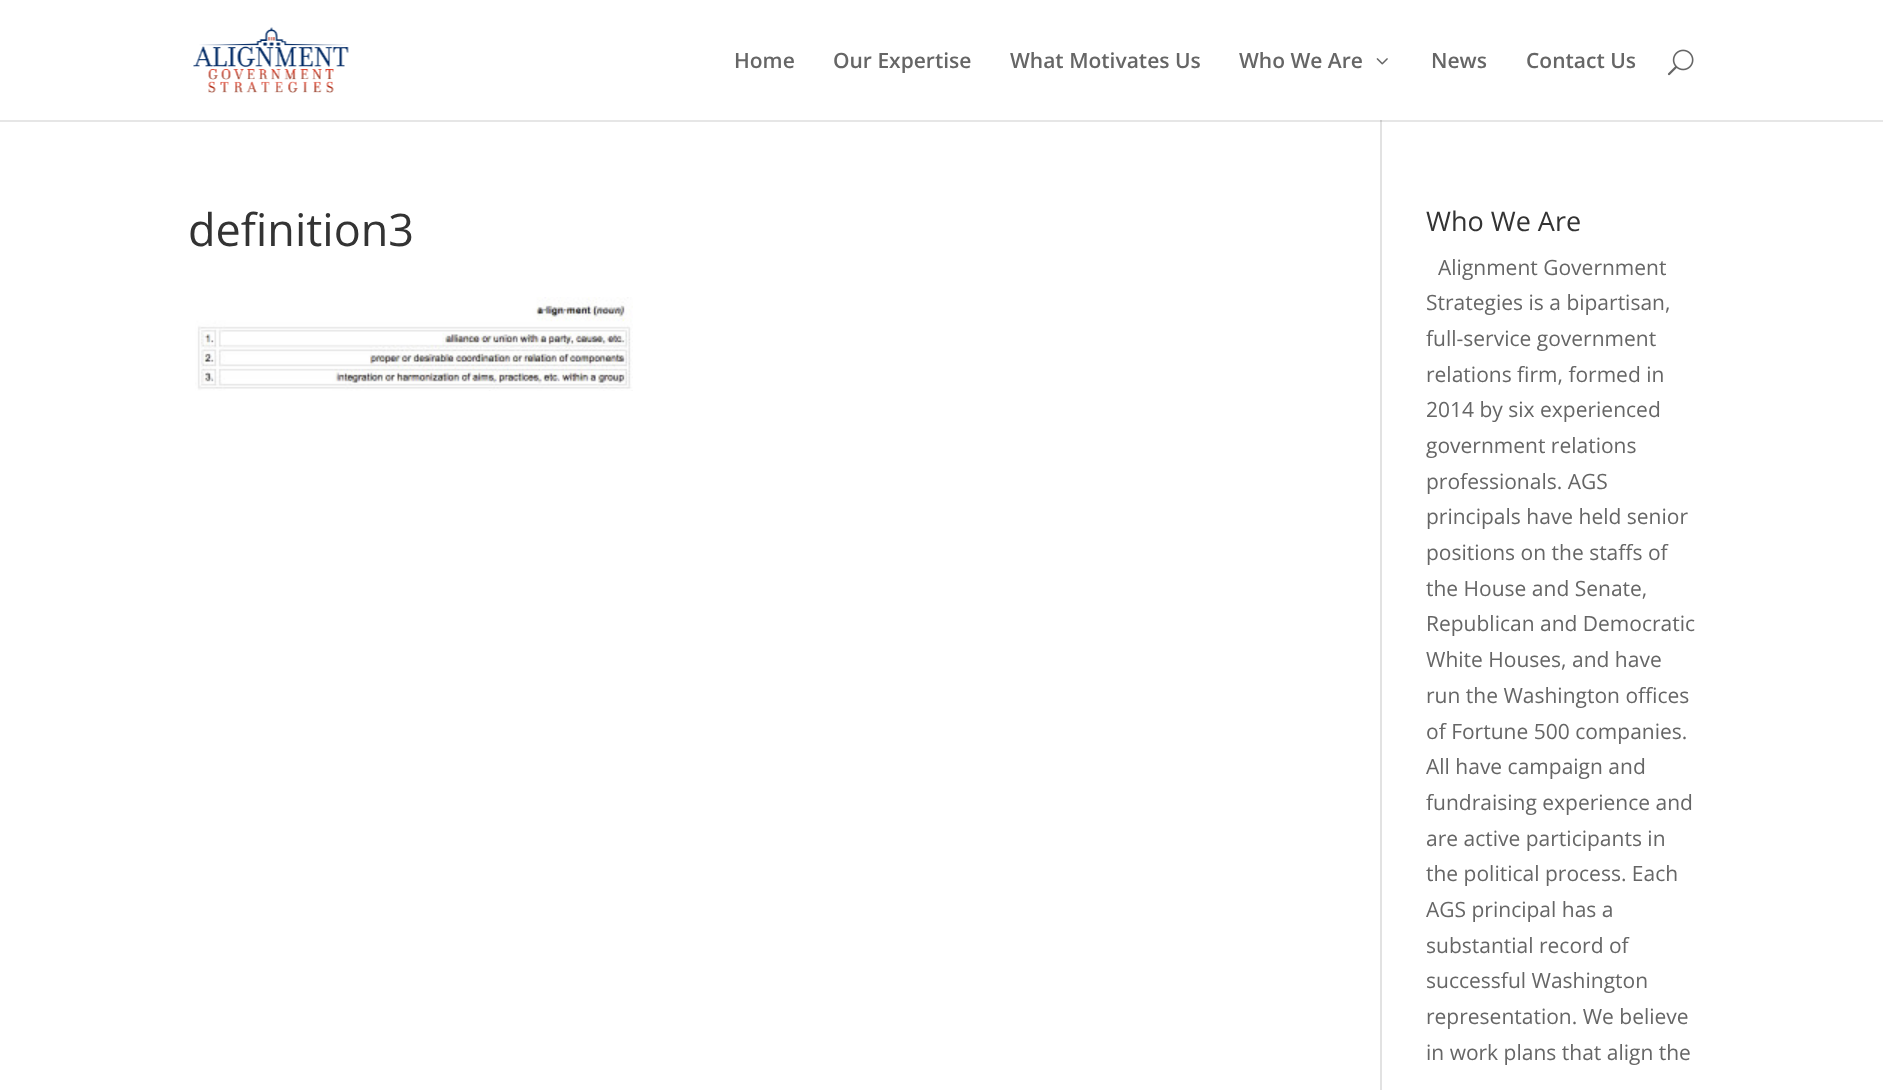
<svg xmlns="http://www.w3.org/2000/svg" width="1883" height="1090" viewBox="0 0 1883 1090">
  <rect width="100%" height="100%" fill="#fff"/>
  <image x="193" y="27" width="156" height="66" href="img/1.png"/>
  <image x="1376" y="58" width="12" height="7" href="img/2.png"/>
  <image x="1667" y="49" width="27" height="27" href="img/3.png"/>
  <path d="M0 120h1883v2H0z" fill="#e6e6e6"/>
  <path d="M1380 120h2v970H1380z" fill="#e2e2e2"/>
  <path d="M1380 120h2v2H1380z" fill="#cbcbcb"/>
  <image x="195" y="297" width="438" height="94" href="img/4.png"/>
  <g font-family="Open Sans" font-size="21" font-weight="600" fill="#666">
    <text x="734" y="68">Home</text>
    <text x="833" y="68">Our Expertise</text>
    <text x="1010" y="68">What Motivates Us</text>
    <text x="1239" y="68">Who We Are</text>
    <text x="1431" y="68">News</text>
    <text x="1526" y="68">Contact Us</text>
  </g>
  <text x="188" y="246" font-family="Open Sans" font-size="45" fill="#333">definition3</text>
  <text x="1426" y="231" font-family="Open Sans" font-size="27" fill="#333">Who We Are</text>
  <g font-family="Open Sans" font-size="21" fill="#666">
    <text x="1438" y="275">Alignment Government</text>
    <text x="1426" y="310">Strategies is a bipartisan,</text>
    <text x="1426" y="346">full-service government</text>
    <text x="1426" y="382">relations firm, formed in</text>
    <text x="1426" y="417">2014 by six experienced</text>
    <text x="1426" y="453">government relations</text>
    <text x="1426" y="489">professionals. AGS</text>
    <text x="1426" y="524">principals have held senior</text>
    <text x="1426" y="560">positions on the staffs of</text>
    <text x="1426" y="596">the House and Senate,</text>
    <text x="1426" y="631">Republican and Democratic</text>
    <text x="1426" y="667">White Houses, and have</text>
    <text x="1426" y="703">run the Washington offices</text>
    <text x="1426" y="739">of Fortune 500 companies.</text>
    <text x="1426" y="774">All have campaign and</text>
    <text x="1426" y="810">fundraising experience and</text>
    <text x="1426" y="846">are active participants in</text>
    <text x="1426" y="881">the political process. Each</text>
    <text x="1426" y="917">AGS principal has a</text>
    <text x="1426" y="953">substantial record of</text>
    <text x="1426" y="988">successful Washington</text>
    <text x="1426" y="1024">representation. We believe</text>
    <text x="1426" y="1060">in work plans that align the</text>
  </g>
</svg>
